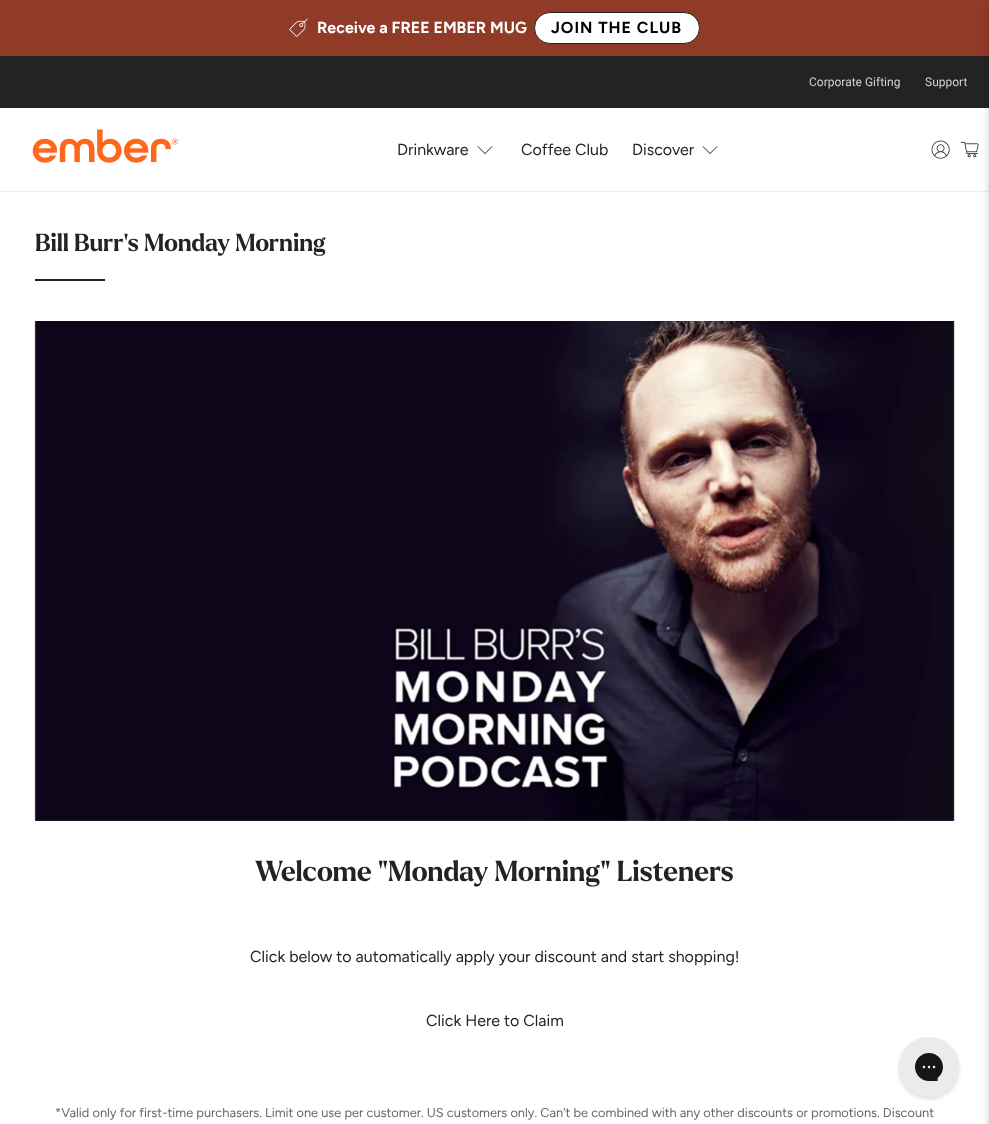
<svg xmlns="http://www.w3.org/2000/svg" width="989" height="1124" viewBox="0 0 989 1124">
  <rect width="100%" height="100%" fill="#fff"/>
  <path d="M0 0h989v56H0z" fill="#903b28"/>
  <path d="M0 56h989v52H0z" fill="#232323"/>
  <path d="M0 191h989v1H0z" fill="#eee"/>
  <image x="960" y="141" width="19" height="17" href="img/5.png"/>
  <path d="M989 8h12v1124H989z" fill="#0a0a0a1a" filter="blur(4px)"/>
  <image x="289" y="18" width="19" height="19" href="img/1.png"/>
  <rect x="534.5" y="12.5" width="165" height="31" rx="15.5" fill="#fff" stroke="#232323"/>
  <path d="M989 4h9v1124H989z" fill="#0000001a" filter="blur(3px)"/>
  <image x="32" y="129" width="147" height="34" href="img/2.png"/>
  <image x="477" y="146" width="16" height="8" href="img/3.png"/>
  <image x="702" y="146" width="16" height="8" href="img/3.png"/>
  <image x="931" y="140" width="19" height="19" href="img/4.png"/>
  <path d="M35 279h70v2H35z" fill="#232323"/>
  <image x="34" y="321" width="921" height="500" href="img/6.png"/>
  <image x="897" y="1037" width="64" height="64" href="img/7.png"/>
  <text x="317" y="33" font-family="Figtree" font-size="16" font-weight="bold" fill="#fff">Receive a FREE EMBER MUG</text>
  <text x="551" y="33" font-family="Figtree" font-size="16" font-weight="bold" letter-spacing="1" fill="#000">JOIN THE CLUB</text>
  <g font-family="Roboto" font-size="12" fill="#d3d3d3">
    <text x="809" y="86">Corporate Gifting</text>
    <text x="925" y="86">Support</text>
  </g>
  <g font-family="Figtree" font-size="16" fill="#232323">
    <text x="397" y="155">Drinkware</text>
    <text x="521" y="155">Coffee Club</text>
    <text x="632" y="155">Discover</text>
  </g>
  <text x="35" y="251" font-family="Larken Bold" font-size="24" font-weight="bold" fill="#232323">Bill Burr's Monday Morning</text>
  <text x="255" y="881" font-family="Larken Bold" font-size="28" font-weight="bold" fill="#232323">Welcome "Monday Morning" Listeners</text>
  <g font-family="Figtree" font-size="16" fill="#232323">
    <text x="250" y="962">Click below to automatically apply your discount and start shopping!</text>
    <text x="426" y="1026">Click Here to Claim</text>
  </g>
  <text x="55" y="1117" font-family="Figtree" font-size="12.8" fill="#666">*Valid only for first-time purchasers. Limit one use per customer. US customers only. Can’t be combined with any other discounts or promotions. Discount</text>
</svg>
